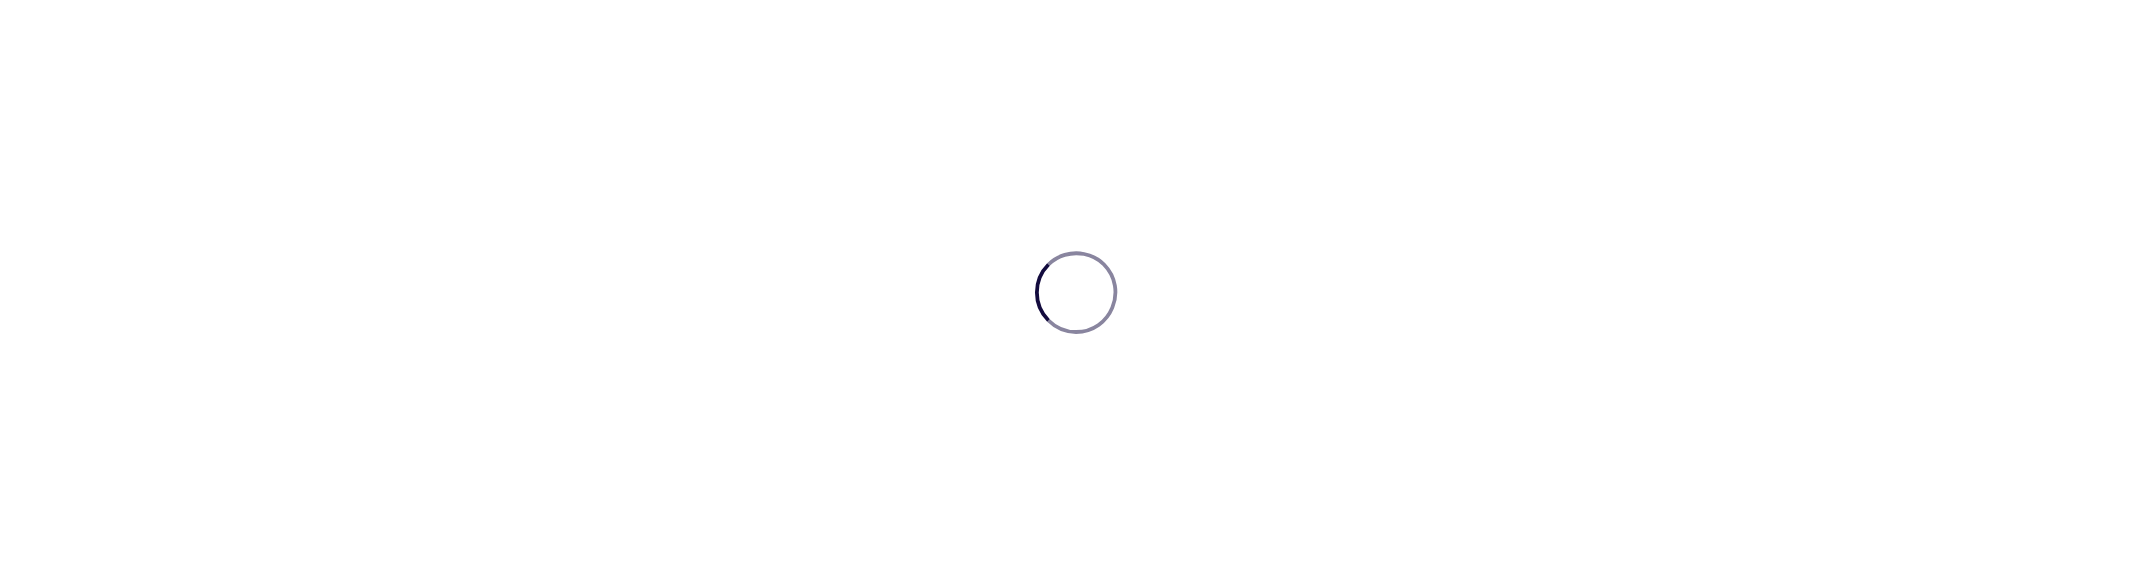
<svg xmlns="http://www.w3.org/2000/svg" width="2152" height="585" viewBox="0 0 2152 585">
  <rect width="100%" height="100%" fill="#fff"/>
  <path d="M1048.5 264.5C1057.5 255.5 1071 251.5 1084 254C1091.5 255.5 1098.5 259 1104 264.5C1128.5 289.5 1111 332 1076 332C1066 332 1055.5 327.5 1048.5 320.5" fill="none" stroke="#89859f" stroke-width="3.8"/>
  <path d="M1048.5 320.5C1033 305 1033 280 1048.5 264.5" fill="none" stroke="#130b3e" stroke-width="3.8"/>
</svg>
